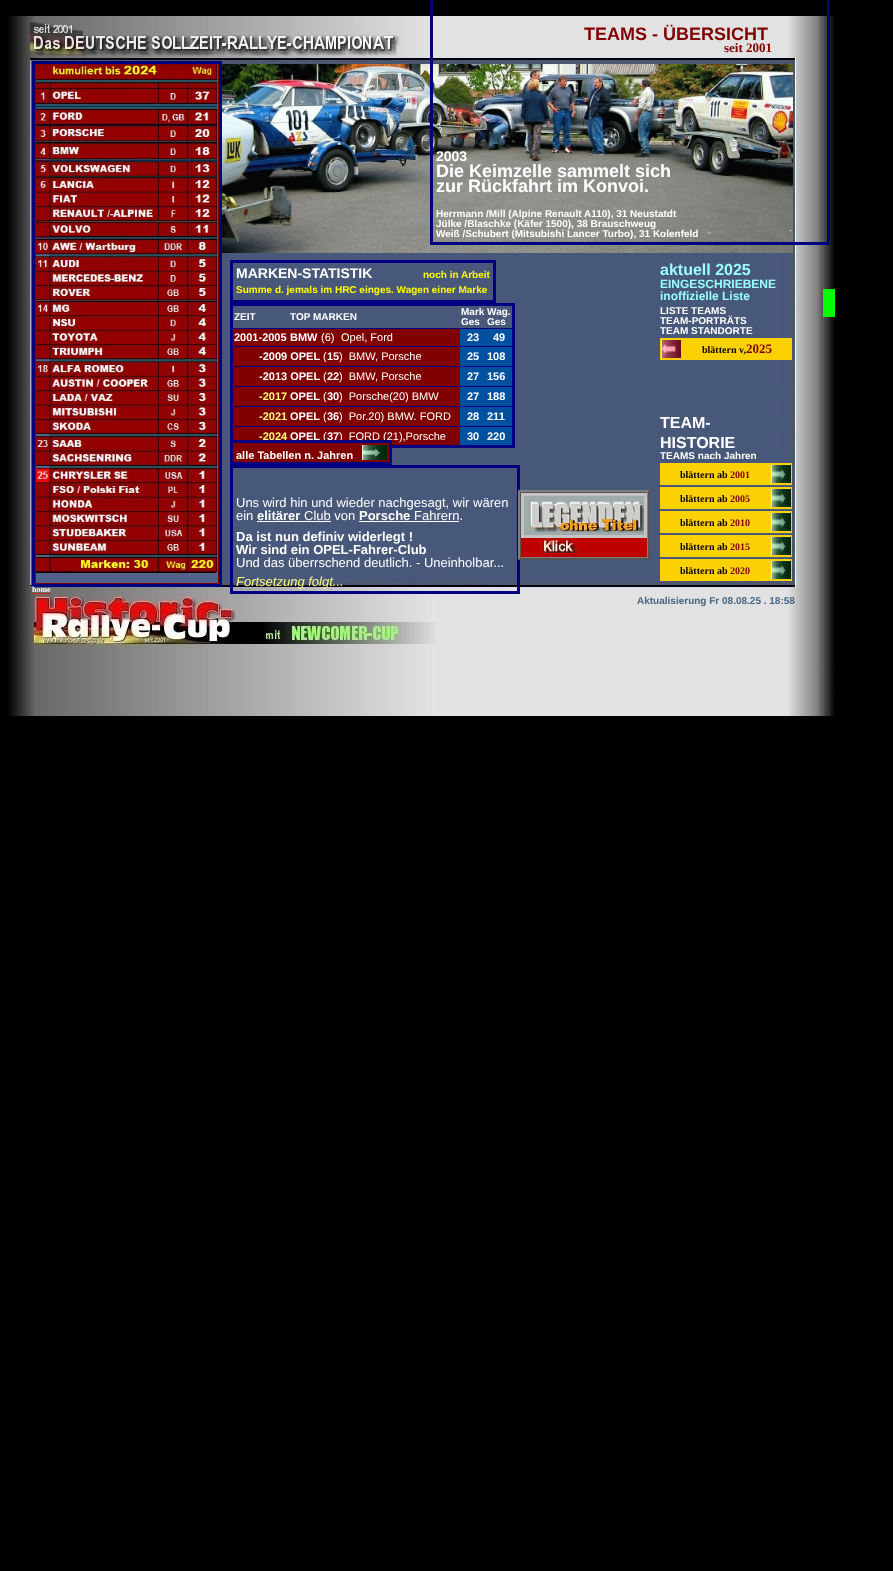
<svg xmlns="http://www.w3.org/2000/svg" width="893" height="1571" viewBox="0 0 893 1571">
  <rect width="100%" height="100%" fill="#000"/>
  <image x="8" y="16" width="827" height="700" href="img/1.png"/>
  <path d="M823 289h12v28H823z" fill="#0f0"/>
  <path d="M231.5 466.5h287v126H231.5z" fill="none" stroke="#000080" stroke-width="3"/>
  <path d="M518 490h132v70H518z" fill="#bf0000"/>
  <path d="M518 490H650L648 492H520Z" fill="#808080"/>
  <path d="M650 490V560L648 558V492Z" fill="#555"/>
  <path d="M650 560H518L520 558H648Z" fill="#555"/>
  <path d="M518 560V490L520 492V558Z" fill="#808080"/>
  <path d="M520 492h128v1H520z" fill="#555"/>
  <path d="M647 492h1v66H647z" fill="#808080"/>
  <path d="M520 557h128v1H520z" fill="#808080"/>
  <path d="M520 492h1v66H520z" fill="#555"/>
  <path d="M522.5 494.5h123v42H522.5z" fill="none" stroke="#c3c3c3" stroke-width="3"/>
  <image x="524" y="496" width="120" height="39" href="img/2.png"/>
  <image x="539" y="538" width="40" height="15" href="img/3.png"/>
  <path d="M32 593h19v1H32z" fill="#c22c16"/>
  <path d="M231.5 261.5h263v40H231.5z" fill="none" stroke="#000080" stroke-width="3"/>
  <path d="M230 303h285v3H230z" fill="#000080"/>
  <path d="M231 328h283v1H231z" fill="#000080"/>
  <path d="M231 346h283v1H231z" fill="#000080"/>
  <path d="M231 366h283v1H231z" fill="#000080"/>
  <path d="M231 386h283v1H231z" fill="#000080"/>
  <path d="M231 406h283v1H231z" fill="#000080"/>
  <path d="M231 426h283v1H231z" fill="#000080"/>
  <path d="M512 303h3v145H512z" fill="#000080"/>
  <path d="M392 445h123v3H392z" fill="#000080"/>
  <path d="M230 303h3v145H230z" fill="#000080"/>
  <path d="M233 329h227v17H233z" fill="#800000"/>
  <path d="M460 329h52v17H460z" fill="#0050a0"/>
  <path d="M233 347h227v19H233z" fill="#800000"/>
  <path d="M460 347h52v19H460z" fill="#0050a0"/>
  <path d="M233 367h227v19H233z" fill="#800000"/>
  <path d="M460 367h52v19H460z" fill="#0050a0"/>
  <path d="M233 387h227v19H233z" fill="#800000"/>
  <path d="M460 387h52v19H460z" fill="#0050a0"/>
  <path d="M233 407h227v19H233z" fill="#800000"/>
  <path d="M460 407h52v19H460z" fill="#0050a0"/>
  <path d="M233 427h227v18H233z" fill="#800000"/>
  <path d="M460 427h52v18H460z" fill="#0050a0"/>
  <path d="M660 338h132v22H660z" fill="#fbd104"/>
  <image x="661" y="340" width="20" height="18" href="img/4.png"/>
  <path d="M257 521h74v1H257z" fill="#fff"/>
  <path d="M359 521h100v1H359z" fill="#fff"/>
  <path d="M660 463h132v22H660z" fill="#fbd104"/>
  <image x="771" y="465" width="20" height="18" href="img/6.png"/>
  <path d="M660 487h132v22H660z" fill="#fbd104"/>
  <image x="771" y="489" width="20" height="18" href="img/6.png"/>
  <path d="M660 511h132v22H660z" fill="#fbd104"/>
  <image x="771" y="513" width="20" height="18" href="img/7.png"/>
  <path d="M660 535h132v22H660z" fill="#fbd104"/>
  <image x="771" y="537" width="20" height="18" href="img/8.png"/>
  <path d="M660 559h132v22H660z" fill="#fbd104"/>
  <image x="771" y="561" width="20" height="18" href="img/6.png"/>
  <path d="M35 64h184v520H35z" fill="#800000"/>
  <path d="M32 61h190v3H32z" fill="#000080"/>
  <path d="M219 61h3v526H219z" fill="#000080"/>
  <path d="M32 584h190v3H32z" fill="#000080"/>
  <path d="M32 61h3v526H32z" fill="#000080"/>
  <image x="36" y="65" width="182" height="518" href="img/9.png"/>
  <image x="222" y="64" width="571" height="189" href="img/10.png"/>
  <path d="M431.5 -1.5h397v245H431.5z" fill="none" stroke="#000080" stroke-width="3"/>
  <text x="584" y="40" font-family="Liberation Sans" font-size="18" font-weight="bold" fill="#800000">TEAMS - ÜBERSICHT</text>
  <text x="724" y="52" font-family="Liberation Serif" font-size="13" font-weight="bold" fill="#800000">seit 2001</text>
  <text x="32" y="592" font-family="Liberation Serif" font-size="8" font-weight="bold" fill="#fff">home</text>
  <text x="637" y="604" font-family="Liberation Sans" font-size="10" font-weight="bold" fill="#466483">Aktualisierung Fr 08.08.25 . 18:58</text>
  <text x="236" y="278" font-family="Liberation Sans" font-size="14" font-weight="bold" fill="#fff">MARKEN-STATISTIK</text>
  <g font-family="Liberation Sans" font-size="10" font-weight="bold" fill="#ff0">
    <text x="423" y="278">noch in Arbeit</text>
    <text x="236" y="293">Summe d. jemals im HRC einges. Wagen einer Marke</text>
  </g>
  <g font-family="Liberation Sans" font-size="10" font-weight="bold" fill="#fff">
    <text x="234" y="320">ZEIT</text>
    <text x="290" y="320">TOP MARKEN</text>
    <text x="461" y="315">Mark Wag.</text>
    <text x="461" y="325">Ges</text>
    <text x="487" y="325">Ges</text>
  </g>
  <g font-family="Liberation Sans" font-size="11" font-weight="bold" fill="#fff">
    <text x="234" y="341">2001-2005</text>
    <text x="290" y="341">BMW</text>
  </g>
  <g font-family="Liberation Sans" font-size="11" fill="#fff">
    <text x="321" y="341">(6)</text>
    <text x="341" y="341">Opel, Ford</text>
  </g>
  <g font-family="Liberation Sans" font-size="11" font-weight="bold" fill="#fff">
    <text x="467" y="341">23</text>
    <text x="493" y="341">49</text>
    <text x="259" y="360">-2009 OPEL</text>
  </g>
  <text x="323" y="360" font-family="Liberation Sans" font-size="11" fill="#fff">(</text>
  <text x="327" y="360" font-family="Liberation Sans" font-size="11" font-weight="bold" fill="#fff">15</text>
  <text x="339" y="360" font-family="Liberation Sans" font-size="11" fill="#fff" xml:space="preserve">)  BMW, Porsche</text>
  <g font-family="Liberation Sans" font-size="11" font-weight="bold" fill="#fff">
    <text x="467" y="360">25</text>
    <text x="487" y="360">108</text>
    <text x="259" y="380">-2013 OPEL</text>
  </g>
  <text x="323" y="380" font-family="Liberation Sans" font-size="11" fill="#fff">(</text>
  <text x="327" y="380" font-family="Liberation Sans" font-size="11" font-weight="bold" fill="#fff">22</text>
  <text x="339" y="380" font-family="Liberation Sans" font-size="11" fill="#fff" xml:space="preserve">)  BMW, Porsche</text>
  <g font-family="Liberation Sans" font-size="11" font-weight="bold" fill="#fff">
    <text x="467" y="380">27</text>
    <text x="487" y="380">156</text>
  </g>
  <text x="259" y="400" font-family="Liberation Sans" font-size="11" font-weight="bold" fill="#ffff80">-2017</text>
  <text x="290" y="400" font-family="Liberation Sans" font-size="11" font-weight="bold" fill="#fff">OPEL</text>
  <text x="323" y="400" font-family="Liberation Sans" font-size="11" fill="#fff">(</text>
  <text x="327" y="400" font-family="Liberation Sans" font-size="11" font-weight="bold" fill="#fff">30</text>
  <text x="339" y="400" font-family="Liberation Sans" font-size="11" fill="#fff" xml:space="preserve">)  Porsche(20) BMW</text>
  <g font-family="Liberation Sans" font-size="11" font-weight="bold" fill="#fff">
    <text x="467" y="400">27</text>
    <text x="487" y="400">188</text>
  </g>
  <text x="259" y="420" font-family="Liberation Sans" font-size="11" font-weight="bold" fill="#ffff80">-2021</text>
  <text x="290" y="420" font-family="Liberation Sans" font-size="11" font-weight="bold" fill="#fff">OPEL</text>
  <text x="323" y="420" font-family="Liberation Sans" font-size="11" fill="#fff">(</text>
  <text x="327" y="420" font-family="Liberation Sans" font-size="11" font-weight="bold" fill="#fff">36</text>
  <text x="339" y="420" font-family="Liberation Sans" font-size="11" fill="#fff" xml:space="preserve">)  Por.20) BMW. FORD</text>
  <g font-family="Liberation Sans" font-size="11" font-weight="bold" fill="#fff">
    <text x="467" y="420">28</text>
    <text x="487" y="420">211</text>
  </g>
  <text x="259" y="440" font-family="Liberation Sans" font-size="11" font-weight="bold" fill="#ffff80">-2024</text>
  <text x="290" y="440" font-family="Liberation Sans" font-size="11" font-weight="bold" fill="#fff">OPEL</text>
  <text x="323" y="440" font-family="Liberation Sans" font-size="11" fill="#fff">(</text>
  <text x="327" y="440" font-family="Liberation Sans" font-size="11" font-weight="bold" fill="#fff">37</text>
  <text x="339" y="440" font-family="Liberation Sans" font-size="11" fill="#fff" xml:space="preserve">)  FORD (21),Porsche</text>
  <g font-family="Liberation Sans" font-size="11" font-weight="bold" fill="#fff">
    <text x="467" y="440">30</text>
    <text x="487" y="440">220</text>
  </g>
  <text x="660" y="275" font-family="Liberation Sans" font-size="16" font-weight="bold" fill="#9ff">aktuell 2025</text>
  <g font-family="Liberation Sans" font-size="12" font-weight="bold" fill="#9ff">
    <text x="660" y="288">EINGESCHRIEBENE</text>
    <text x="660" y="300">inoffizielle Liste</text>
  </g>
  <g font-family="Liberation Sans" font-size="10" font-weight="bold" fill="#fff">
    <text x="660" y="314">LISTE TEAMS</text>
    <text x="660" y="324">TEAM-PORTRÄTS</text>
    <text x="660" y="334">TEAM STANDORTE</text>
  </g>
  <text x="702" y="353" font-family="Liberation Serif" font-size="10" font-weight="bold" fill="#000">blättern v,</text>
  <text x="746" y="353" font-family="Liberation Serif" font-size="13" font-weight="bold" fill="#800000">2025</text>
  <path d="M231.5 441.5h159v22H231.5z" fill="none" stroke="#000080" stroke-width="3"/>
  <path d="M233 445h156v17H233z" fill="#800000"/>
  <text x="236" y="459" font-family="Liberation Sans" font-size="11" font-weight="bold" fill="#fff">alle Tabellen n. Jahren</text>
  <image x="362" y="445" width="25" height="15" href="img/5.png"/>
  <g font-family="Liberation Sans" font-size="13" fill="#fff">
    <text x="236" y="507">Uns wird hin und wieder nachgesagt, wir wären</text>
    <text x="236" y="520">ein</text>
  </g>
  <text x="257" y="520" font-family="Liberation Sans" font-size="13" font-weight="bold" fill="#fff">elitärer</text>
  <text x="304" y="520" font-family="Liberation Sans" font-size="13" fill="#fff">Club von</text>
  <text x="359" y="520" font-family="Liberation Sans" font-size="13" font-weight="bold" fill="#fff">Porsche</text>
  <text x="414" y="520" font-family="Liberation Sans" font-size="13" fill="#fff">Fahrern.</text>
  <g font-family="Liberation Sans" font-size="13" font-weight="bold" fill="#fff">
    <text x="236" y="541">Da ist nun definiv widerlegt !</text>
    <text x="236" y="554">Wir sind ein OPEL-Fahrer-Club</text>
  </g>
  <text x="236" y="567" font-family="Liberation Sans" font-size="13" fill="#fff">Und das überrschend deutlich. - Uneinholbar...</text>
  <text x="236" y="586" font-family="Liberation Sans" font-size="13" font-style="italic" fill="#ffff80">Fortsetzung folgt...</text>
  <g font-family="Liberation Sans" font-size="16" font-weight="bold" fill="#fff">
    <text x="660" y="428">TEAM-</text>
    <text x="660" y="448">HISTORIE</text>
  </g>
  <text x="660" y="459" font-family="Liberation Sans" font-size="10" font-weight="bold" fill="#fff">TEAMS nach Jahren</text>
  <text x="680" y="478" font-family="Liberation Serif" font-size="10" font-weight="bold" fill="#000">blättern ab</text>
  <text x="730" y="478" font-family="Liberation Serif" font-size="10" font-weight="bold" fill="#800000">2001</text>
  <text x="680" y="502" font-family="Liberation Serif" font-size="10" font-weight="bold" fill="#000">blättern ab</text>
  <text x="730" y="502" font-family="Liberation Serif" font-size="10" font-weight="bold" fill="#800000">2005</text>
  <text x="680" y="526" font-family="Liberation Serif" font-size="10" font-weight="bold" fill="#000">blättern ab</text>
  <text x="730" y="526" font-family="Liberation Serif" font-size="10" font-weight="bold" fill="#800000">2010</text>
  <text x="680" y="550" font-family="Liberation Serif" font-size="10" font-weight="bold" fill="#000">blättern ab</text>
  <text x="730" y="550" font-family="Liberation Serif" font-size="10" font-weight="bold" fill="#800000">2015</text>
  <text x="680" y="574" font-family="Liberation Serif" font-size="10" font-weight="bold" fill="#000">blättern ab</text>
  <text x="730" y="574" font-family="Liberation Serif" font-size="10" font-weight="bold" fill="#800000">2020</text>
  <text x="436" y="161" font-family="Liberation Sans" font-size="14" font-weight="bold" fill="#fff">2003</text>
  <g font-family="Liberation Sans" font-size="18" font-weight="bold" fill="#fff">
    <text x="436" y="177">Die Keimzelle sammelt sich</text>
    <text x="436" y="192">zur Rückfahrt im Konvoi.</text>
  </g>
  <g font-family="Liberation Sans" font-size="10" font-weight="bold" fill="#fff">
    <text x="436" y="217">Herrmann /Mill (Alpine Renault A110), 31 Neustatdt</text>
    <text x="436" y="227">Jülke /Blaschke (Käfer 1500), 38 Brauschweug</text>
    <text x="436" y="237">Weiß /Schubert (Mitsubishi Lancer Turbo), 31 Kolenfeld</text>
  </g>
</svg>
